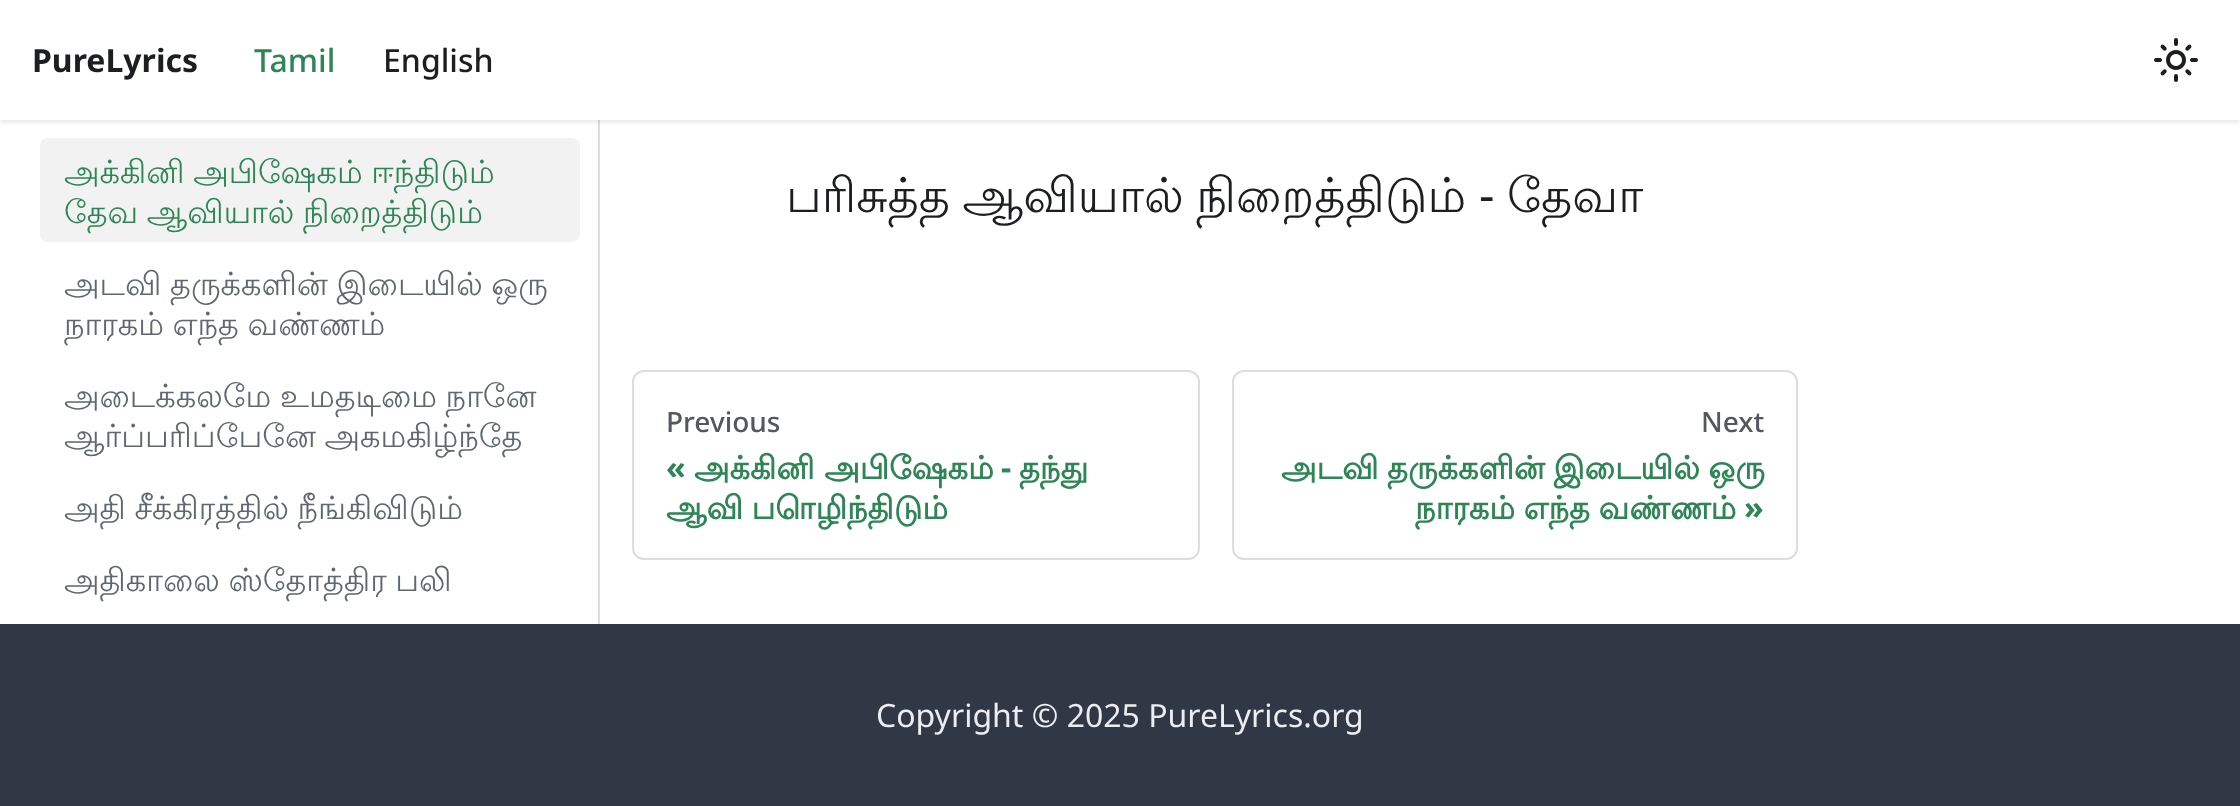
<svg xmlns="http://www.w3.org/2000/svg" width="2240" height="806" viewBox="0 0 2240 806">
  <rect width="100%" height="100%" fill="#fff"/>
  <path d="M598 120h2v504H598z" fill="#dadde1"/>
  <path d="M0 2h2240v120H0z" fill="#0000001a" filter="blur(2px)"/>
  <path d="M0 0h2240v120H0z" fill="#fff"/>
  <image x="2154" y="38" width="44" height="44" href="img/1.png"/>
  <rect x="40" y="138" width="540" height="104" rx="8" fill="#f2f2f2"/>
  <rect x="633" y="371" width="566" height="188" rx="11" fill="none" stroke="#dadde1" stroke-width="2"/>
  <rect x="1233" y="371" width="564" height="188" rx="11" fill="none" stroke="#dadde1" stroke-width="2"/>
  <path d="M0 624h2240v182H0z" fill="#303846"/>
  <text x="32" y="72" font-family="Noto Sans" font-size="32" font-weight="bold" fill="#1c1e21">PureLyrics</text>
  <text x="254" y="72" font-family="Noto Sans" font-size="32" font-weight="500" fill="#2e8555">Tamil</text>
  <text x="383" y="72" font-family="Noto Sans" font-size="32" font-weight="500" fill="#1c1e21">English</text>
  <g font-family="Lohit Tamil" font-size="32" fill="#2e8555">
    <text x="64" y="183" word-spacing="-1">அக்கினி அபிஷேகம் ஈந்திடும்</text>
    <text x="64" y="223" word-spacing="-1">தேவ ஆவியால் நிறைத்திடும்</text>
  </g>
  <g font-family="Lohit Tamil" font-size="32" fill="#606770">
    <text x="64" y="295" word-spacing="-1">அடவி தருக்களின் இடையில் ஒரு</text>
    <text x="64" y="335" word-spacing="-1">நாரகம் எந்த வண்ணம்</text>
    <text x="64" y="407" word-spacing="-1">அடைக்கலமே உமதடிமை நானே</text>
    <text x="64" y="447" word-spacing="-1">ஆர்ப்பரிப்பேனே அகமகிழ்ந்தே</text>
    <text x="64" y="519" word-spacing="-1">அதி சீக்கிரத்தில் நீங்கிவிடும்</text>
    <text x="64" y="591" word-spacing="-1">அதிகாலை ஸ்தோத்திர பலி</text>
  </g>
  <text x="786" y="212" word-spacing="-2" font-family="Lohit Tamil" font-size="48" fill="#1c1e21">பரிசுத்த ஆவியால் நிறைத்திடும்</text>
  <text x="1479" y="212" font-family="Noto Sans" font-size="48" fill="#1c1e21">-</text>
  <text x="1507" y="212" font-family="Lohit Tamil" font-size="48" fill="#1c1e21">தேவா</text>
  <text x="666" y="432" font-family="Noto Sans" font-size="28" font-weight="500" fill="#525860">Previous</text>
  <text x="666" y="479" font-family="Noto Sans" font-size="32" font-weight="bold" fill="#2e8555">«</text>
  <text x="694" y="479" font-family="Lohit Tamil" font-size="32" font-weight="bold" fill="#2e8555">அக்கினி அபிஷேகம்</text>
  <text x="1001" y="479" font-family="Noto Sans" font-size="32" font-weight="bold" fill="#2e8555">-</text>
  <g font-family="Lohit Tamil" font-size="32" font-weight="bold" fill="#2e8555">
    <text x="1019" y="479">தந்து</text>
    <text x="666" y="519" word-spacing="-1">ஆவி பொழிந்திடும்</text>
  </g>
  <text x="1701" y="432" font-family="Noto Sans" font-size="28" font-weight="500" fill="#525860">Next</text>
  <g font-family="Lohit Tamil" font-size="32" font-weight="bold" fill="#2e8555">
    <text x="1281" y="479" word-spacing="-1">அடவி தருக்களின் இடையில் ஒரு</text>
    <text x="1415" y="519" word-spacing="-1">நாரகம் எந்த வண்ணம்</text>
  </g>
  <text x="1744" y="519" font-family="Noto Sans" font-size="32" font-weight="bold" fill="#2e8555">»</text>
  <text x="876" y="727" font-family="Noto Sans" font-size="32" fill="#ebedf0">Copyright © 2025 PureLyrics.org</text>
</svg>
